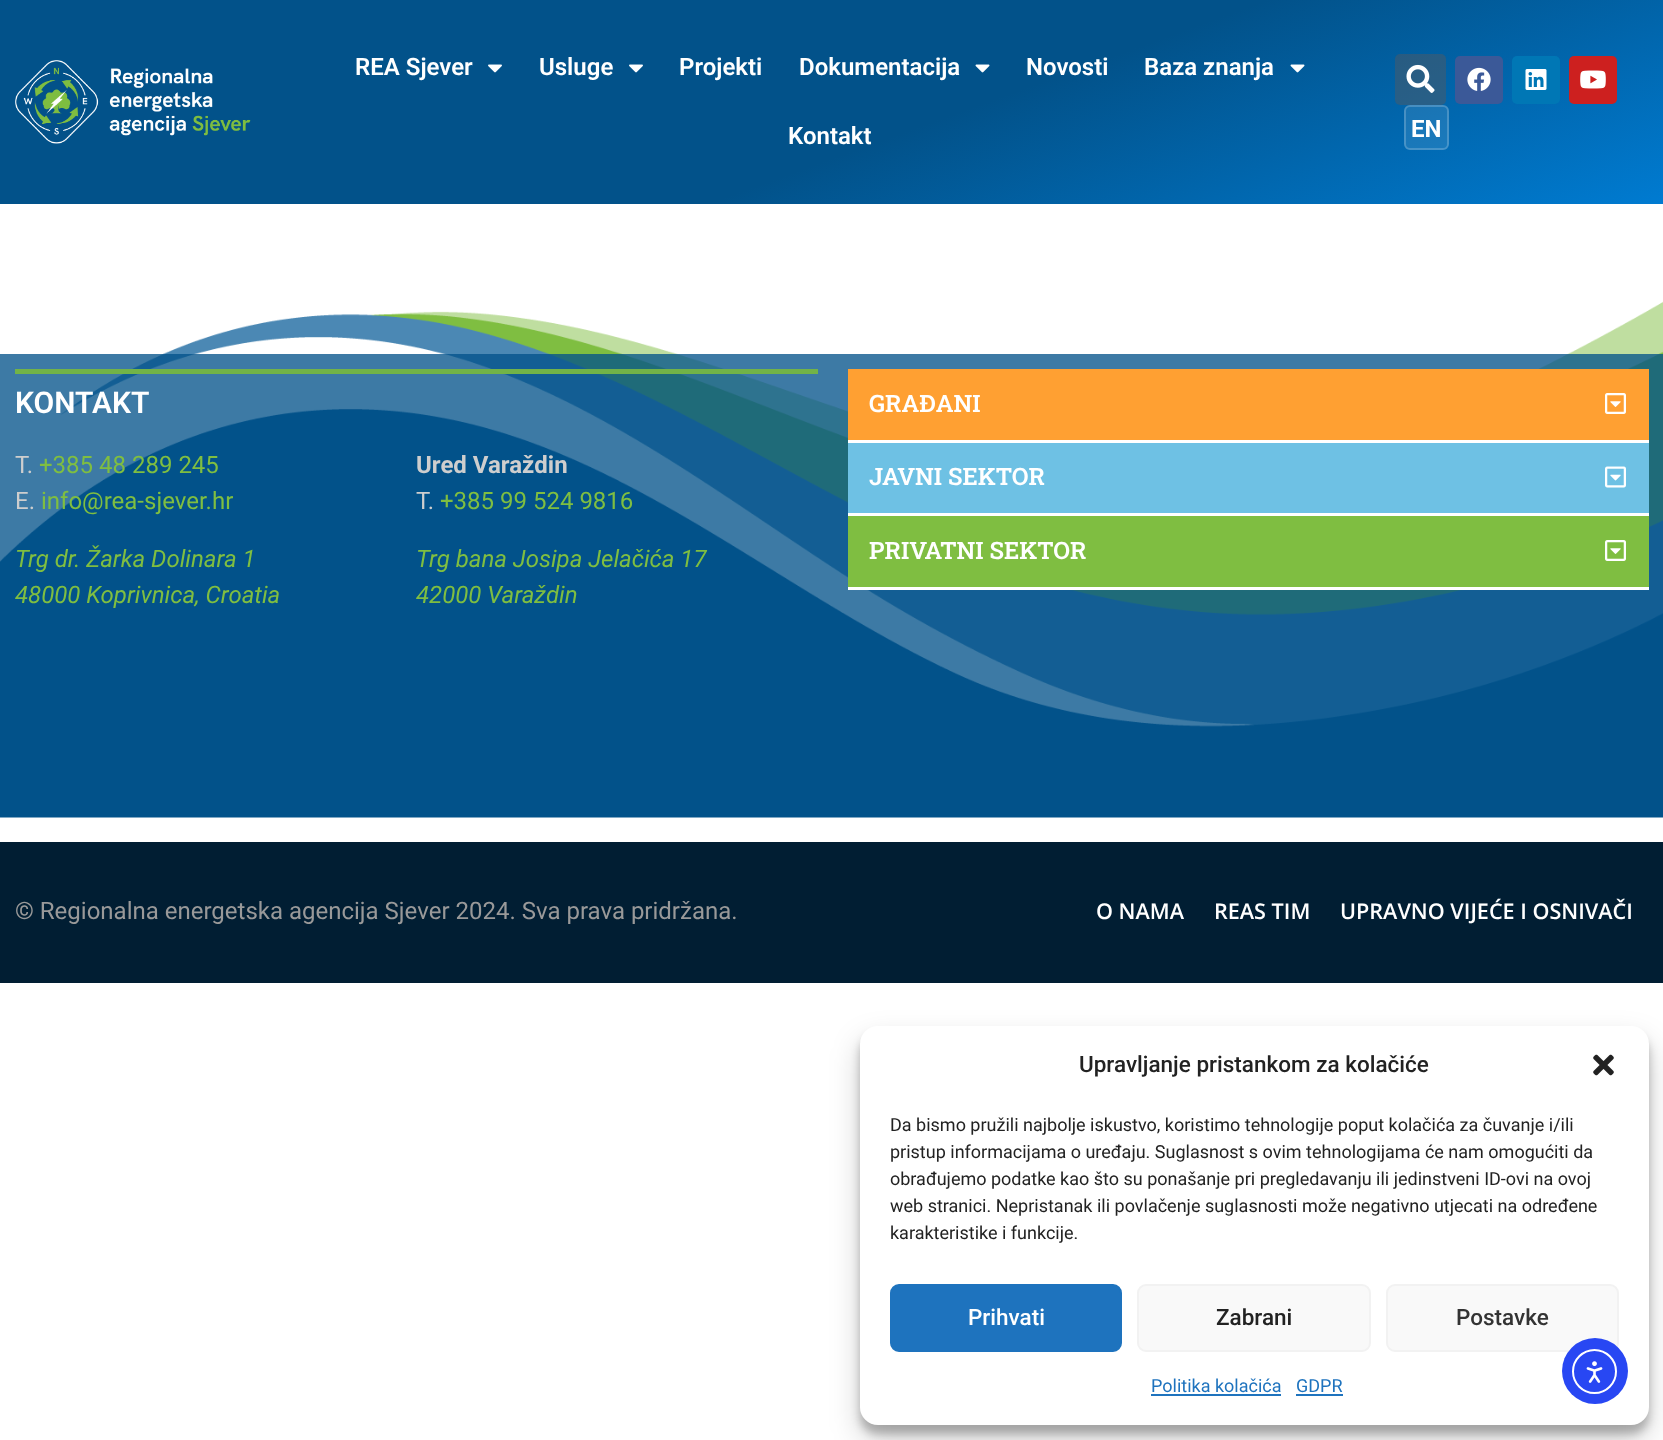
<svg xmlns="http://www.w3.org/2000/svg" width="1663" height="1440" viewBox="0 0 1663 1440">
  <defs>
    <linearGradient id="g1" gradientUnits="userSpaceOnUse" x1="702" y1="-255" x2="962" y2="459"><stop offset="0.57" stop-color="#02528a"/><stop offset="1" stop-color="#007bd1"/></linearGradient>
  </defs>
  <rect width="100%" height="100%" fill="#fff"/>
  <path d="M0 0h1663v204H0z" fill="url(#g1)"/>
  <image x="15" y="60" width="236" height="84" href="img/1.png"/>
  <image x="488" y="64" width="14" height="9" href="img/2.png"/>
  <image x="629" y="64" width="14" height="9" href="img/2.png"/>
  <image x="975" y="64" width="15" height="9" href="img/3.png"/>
  <image x="1290" y="64" width="15" height="9" href="img/4.png"/>
  <rect x="1395" y="54" width="51" height="51" rx="5" fill="#54595f78"/>
  <image x="1406" y="64" width="29" height="29" href="img/5.png"/>
  <rect x="1455" y="56" width="48" height="48" rx="5" fill="#3b5998"/>
  <image x="1467" y="67" width="24" height="24" href="img/6.png"/>
  <rect x="1512" y="56" width="48" height="48" rx="5" fill="#0077b5"/>
  <image x="1525" y="69" width="22" height="21" href="img/7.png"/>
  <rect x="1569" y="56" width="48" height="48" rx="5" fill="#cd201f"/>
  <image x="1580" y="70" width="26" height="19" href="img/8.png"/>
  <rect x="1404" y="105" width="45" height="45" rx="6" fill="#ffffff1a"/>
  <rect x="1405" y="106" width="43" height="43" rx="5" fill="none" stroke="#ffffff33" stroke-width="2"/>
  <image x="0" y="301" width="1663" height="517" href="img/9.png"/>
  <path d="M0 354h833v254H0z" fill="#02528ac4"/>
  <path d="M15 369h803v5H15z" fill="#72b348"/>
  <path d="M833 354h830v373H833z" fill="#02528ac4"/>
  <path d="M848 369h801v71H848z" fill="#ffa032"/>
  <path d="M848 440h801v3H848z" fill="#fff"/>
  <image x="1605" y="393" width="21" height="21" href="img/10.png"/>
  <path d="M848 443h801v70H848z" fill="#6ec1e4"/>
  <path d="M848 513h801v3H848z" fill="#fff"/>
  <image x="1605" y="466" width="21" height="22" href="img/11.png"/>
  <path d="M848 516h801v71H848z" fill="#7fbe41"/>
  <path d="M848 587h801v3H848z" fill="#fff"/>
  <image x="1605" y="540" width="21" height="21" href="img/12.png"/>
  <path d="M0 842h1663v141H0z" fill="#011e33"/>
  <rect x="860" y="1035" width="789" height="399" rx="18" fill="#0000003b" filter="blur(4.5px)"/>
  <rect x="860" y="1041" width="789" height="399" rx="18" fill="#00000030" filter="blur(15px)"/>
  <rect x="860" y="1026" width="789" height="399" rx="18" fill="#fff"/>
  <image x="1593" y="1054" width="21" height="22" href="img/13.png"/>
  <rect x="891" y="1285" width="230" height="66" rx="8" fill="#1e73be" stroke="#1e73be" stroke-width="2"/>
  <rect x="1138" y="1285" width="232" height="66" rx="8" fill="#f9f9f9" stroke="#f2f2f2" stroke-width="2"/>
  <rect x="1387" y="1285" width="231" height="66" rx="8" fill="#f9f9f9" stroke="#f2f2f2" stroke-width="2"/>
  <path d="M1151 1394h130v2H1151z" fill="#1e73be"/>
  <path d="M1296 1394h47v2H1296z" fill="#1e73be"/>
  <circle cx="1595" cy="1371" r="33" fill="#2847f3"/>
  <circle cx="1594.5" cy="1371.5" r="21.5" fill="none" stroke="#fff" stroke-width="2"/>
  <image x="1586" y="1361" width="17" height="22" href="img/14.png"/>
  <g font-family="Roboto" font-size="24" font-weight="600" fill="#fff">
    <text x="355" y="75">REA Sjever</text>
    <text x="539" y="75">Usluge</text>
    <text x="679" y="75">Projekti</text>
    <text x="799" y="75">Dokumentacija</text>
    <text x="1026" y="75">Novosti</text>
    <text x="1144" y="75">Baza znanja</text>
    <text x="788" y="144">Kontakt</text>
  </g>
  <text x="1411" y="137" font-family="Roboto" font-size="24" font-weight="bold" fill="#fff">EN</text>
  <text x="15" y="413" font-family="Roboto" font-size="30" font-weight="600" fill="#fff">KONTAKT</text>
  <text x="15" y="473" font-family="Roboto" font-size="24" fill="#cecece">T.</text>
  <text x="39" y="473" font-family="Roboto" font-size="24" fill="#7fbe41">+385 48 289 245</text>
  <text x="15" y="509" font-family="Roboto" font-size="24" fill="#cecece">E.</text>
  <text x="41" y="509" font-family="Roboto" font-size="24" fill="#7fbe41">info@rea-sjever.hr</text>
  <g font-family="Roboto" font-size="24" font-style="italic" fill="#7fbe41">
    <text x="15" y="567">Trg dr. Žarka Dolinara 1</text>
    <text x="15" y="603">48000 Koprivnica, Croatia</text>
  </g>
  <text x="416" y="473" font-family="Roboto" font-size="24" font-weight="bold" fill="#cecece">Ured Varaždin</text>
  <text x="416" y="509" font-family="Roboto" font-size="24" fill="#cecece">T.</text>
  <text x="440" y="509" font-family="Roboto" font-size="24" fill="#7fbe41">+385 99 524 9816</text>
  <g font-family="Roboto" font-size="24" font-style="italic" fill="#7fbe41">
    <text x="416" y="567">Trg bana Josipa Jelačića 17</text>
    <text x="416" y="603">42000 Varaždin</text>
  </g>
  <g font-family="Roboto Slab" font-size="24" font-weight="600" fill="#fff">
    <text x="869" y="412">GRAĐANI</text>
    <text x="869" y="485">JAVNI SEKTOR</text>
    <text x="869" y="559">PRIVATNI SEKTOR</text>
  </g>
  <text x="15" y="919" font-family="Roboto" font-size="24" fill="#999">© Regionalna energetska agencija Sjever 2024. Sva prava pridržana.</text>
  <g font-family="Open Sans" font-size="21.6" font-weight="600" fill="#fff">
    <text x="1096" y="919">O NAMA</text>
    <text x="1214" y="919">REAS TIM</text>
    <text x="1340" y="919">UPRAVNO VIJEĆE I OSNIVAČI</text>
  </g>
  <text x="1079" y="1072" font-family="Roboto" font-size="22.5" font-weight="500" fill="#222">Upravljanje pristankom za kolačiće</text>
  <g font-family="Roboto" font-size="18" fill="#222">
    <text x="890" y="1131">Da bismo pružili najbolje iskustvo, koristimo tehnologije poput kolačića za čuvanje i/ili</text>
    <text x="890" y="1158">pristup informacijama o uređaju. Suglasnost s ovim tehnologijama će nam omogućiti da</text>
    <text x="890" y="1185">obrađujemo podatke kao što su ponašanje pri pregledavanju ili jedinstveni ID-ovi na ovoj</text>
    <text x="890" y="1212">web stranici. Nepristanak ili povlačenje suglasnosti može negativno utjecati na određene</text>
    <text x="890" y="1239">karakteristike i funkcije.</text>
  </g>
  <text x="968" y="1325" font-family="Roboto" font-size="22.5" font-weight="500" fill="#fff">Prihvati</text>
  <text x="1216" y="1325" font-family="Roboto" font-size="22.5" font-weight="500" fill="#222">Zabrani</text>
  <text x="1456" y="1325" font-family="Roboto" font-size="22.5" font-weight="500" fill="#333">Postavke</text>
  <g font-family="Roboto" font-size="18" fill="#1e73be">
    <text x="1151" y="1392">Politika kolačića</text>
    <text x="1296" y="1392">GDPR</text>
  </g>
</svg>
